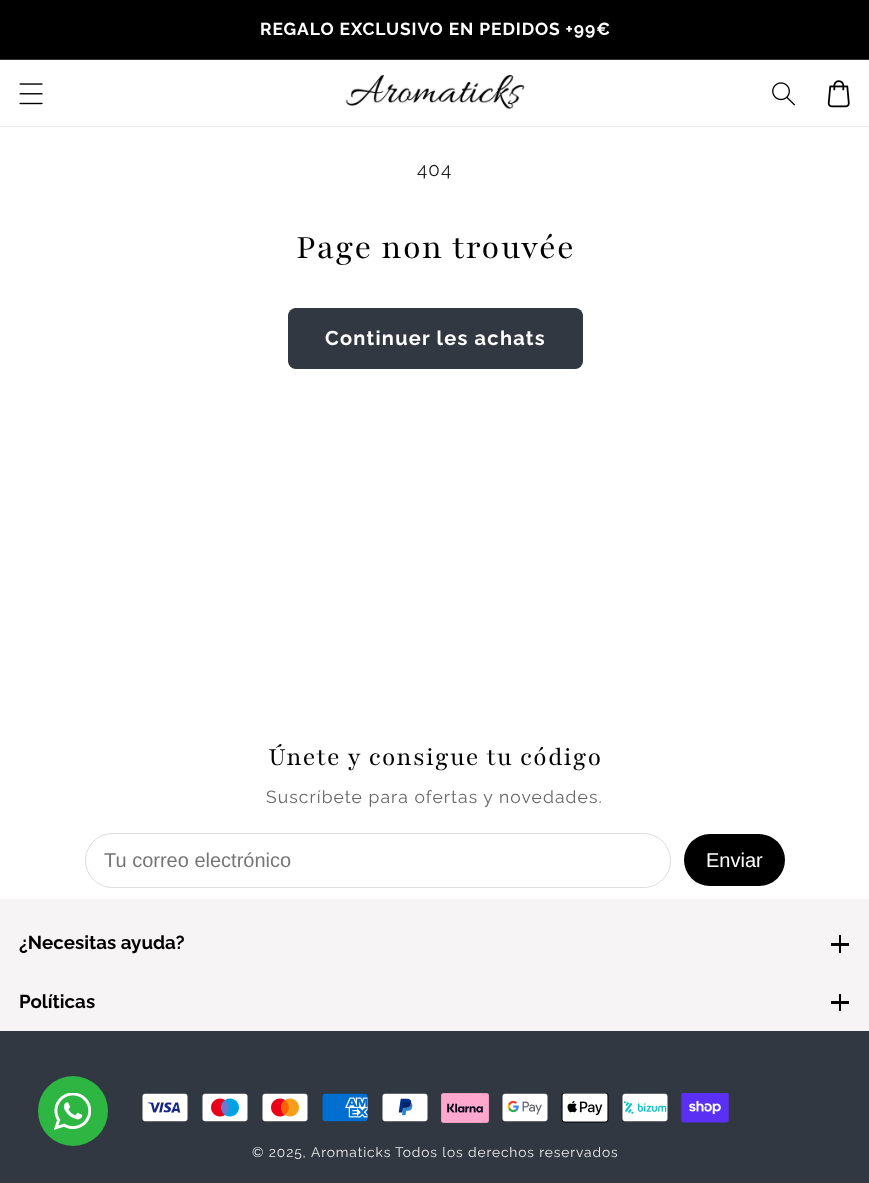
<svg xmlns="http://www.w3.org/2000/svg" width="869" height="1183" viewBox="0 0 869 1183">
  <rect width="100%" height="100%" fill="#fff"/>
  <path d="M0 0h869v59H0z" fill="#000"/>
  <path d="M0 59h869v1H0z" fill="#2e2e2e"/>
  <path d="M0 126h869v1H0z" fill="#ebebeb"/>
  <image x="19" y="83" width="24" height="22" href="img/1.png"/>
  <image x="345" y="75" width="180" height="34" href="img/2.png"/>
  <image x="772" y="82" width="23" height="24" href="img/3.png"/>
  <image x="827" y="80" width="23" height="28" href="img/4.png"/>
  <rect x="289.5" y="309.5" width="292" height="58" rx="8.5" fill="none" stroke="#323841" stroke-width="3"/>
  <rect x="288" y="308" width="295" height="61" rx="8" fill="#323841"/>
  <rect x="85.5" y="833.5" width="585" height="54" rx="27" fill="none" stroke="#ddd"/>
  <rect x="684" y="834" width="101" height="52" rx="26" fill="#000"/>
  <path d="M0 899h869v132H0z" fill="#f6f4f4"/>
  <path d="M831 943h18v3H831z" fill="#000"/>
  <path d="M839 935h2v18H839z" fill="#000"/>
  <path d="M831 1001h18v3H831z" fill="#000"/>
  <path d="M839 994h2v17H839z" fill="#000"/>
  <path d="M0 1031h869v152H0z" fill="#323841"/>
  <circle cx="73" cy="1111" r="35" fill="#2db742"/>
  <image x="54" y="1093" width="37" height="37" href="img/5.png"/>
  <image x="142" y="1093" width="46" height="29" href="img/6.png"/>
  <image x="202" y="1093" width="46" height="29" href="img/7.png"/>
  <image x="262" y="1093" width="46" height="29" href="img/8.png"/>
  <image x="322" y="1093" width="46" height="29" href="img/9.png"/>
  <image x="382" y="1093" width="46" height="29" href="img/10.png"/>
  <image x="441" y="1093" width="48" height="30" href="img/11.png"/>
  <image x="502" y="1093" width="46" height="29" href="img/12.png"/>
  <image x="561" y="1093" width="48" height="30" href="img/13.png"/>
  <image x="622" y="1093" width="46" height="29" href="img/14.png"/>
  <image x="681" y="1093" width="48" height="30" href="img/15.png"/>
  <text x="260" y="35" font-family="Raleway" font-size="17.4" font-weight="bold" letter-spacing="0.9" fill="#fff">REGALO EXCLUSIVO EN PEDIDOS +99€</text>
  <text x="417" y="176" font-family="Raleway" font-size="18.75" letter-spacing="1.1" fill="#1a1a1a">404</text>
  <text x="296" y="258" font-family="Playfair" font-size="36.5" letter-spacing="1" fill="#000">Page non trouvée</text>
  <text x="325" y="345" font-family="Raleway" font-size="20" font-weight="bold" letter-spacing="1.25" fill="#fff">Continuer les achats</text>
  <text x="268" y="765" font-family="'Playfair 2'" font-size="27.5" letter-spacing="1" fill="#000">Únete y consigue tu código</text>
  <text x="266" y="803" font-family="Raleway" font-size="17.5" letter-spacing="1.1" fill="#666">Suscríbete para ofertas y novedades.</text>
  <text x="104" y="867" font-family="Liberation Sans" font-size="20" fill="#757575">Tu correo electrónico</text>
  <text x="706" y="867" font-family="Liberation Sans" font-size="20" fill="#fff">Enviar</text>
  <g font-family="Raleway" font-size="18.75" font-weight="bold" fill="#000">
    <text x="19" y="949">¿Necesitas ayuda?</text>
    <text x="19" y="1008">Políticas</text>
  </g>
  <g font-family="Raleway" font-size="13.75" letter-spacing="0.9" fill="#ebebec">
    <text x="252" y="1157">© 2025,</text>
    <text x="311" y="1157">Aromaticks</text>
    <text x="395" y="1157">Todos los derechos reservados</text>
  </g>
</svg>
